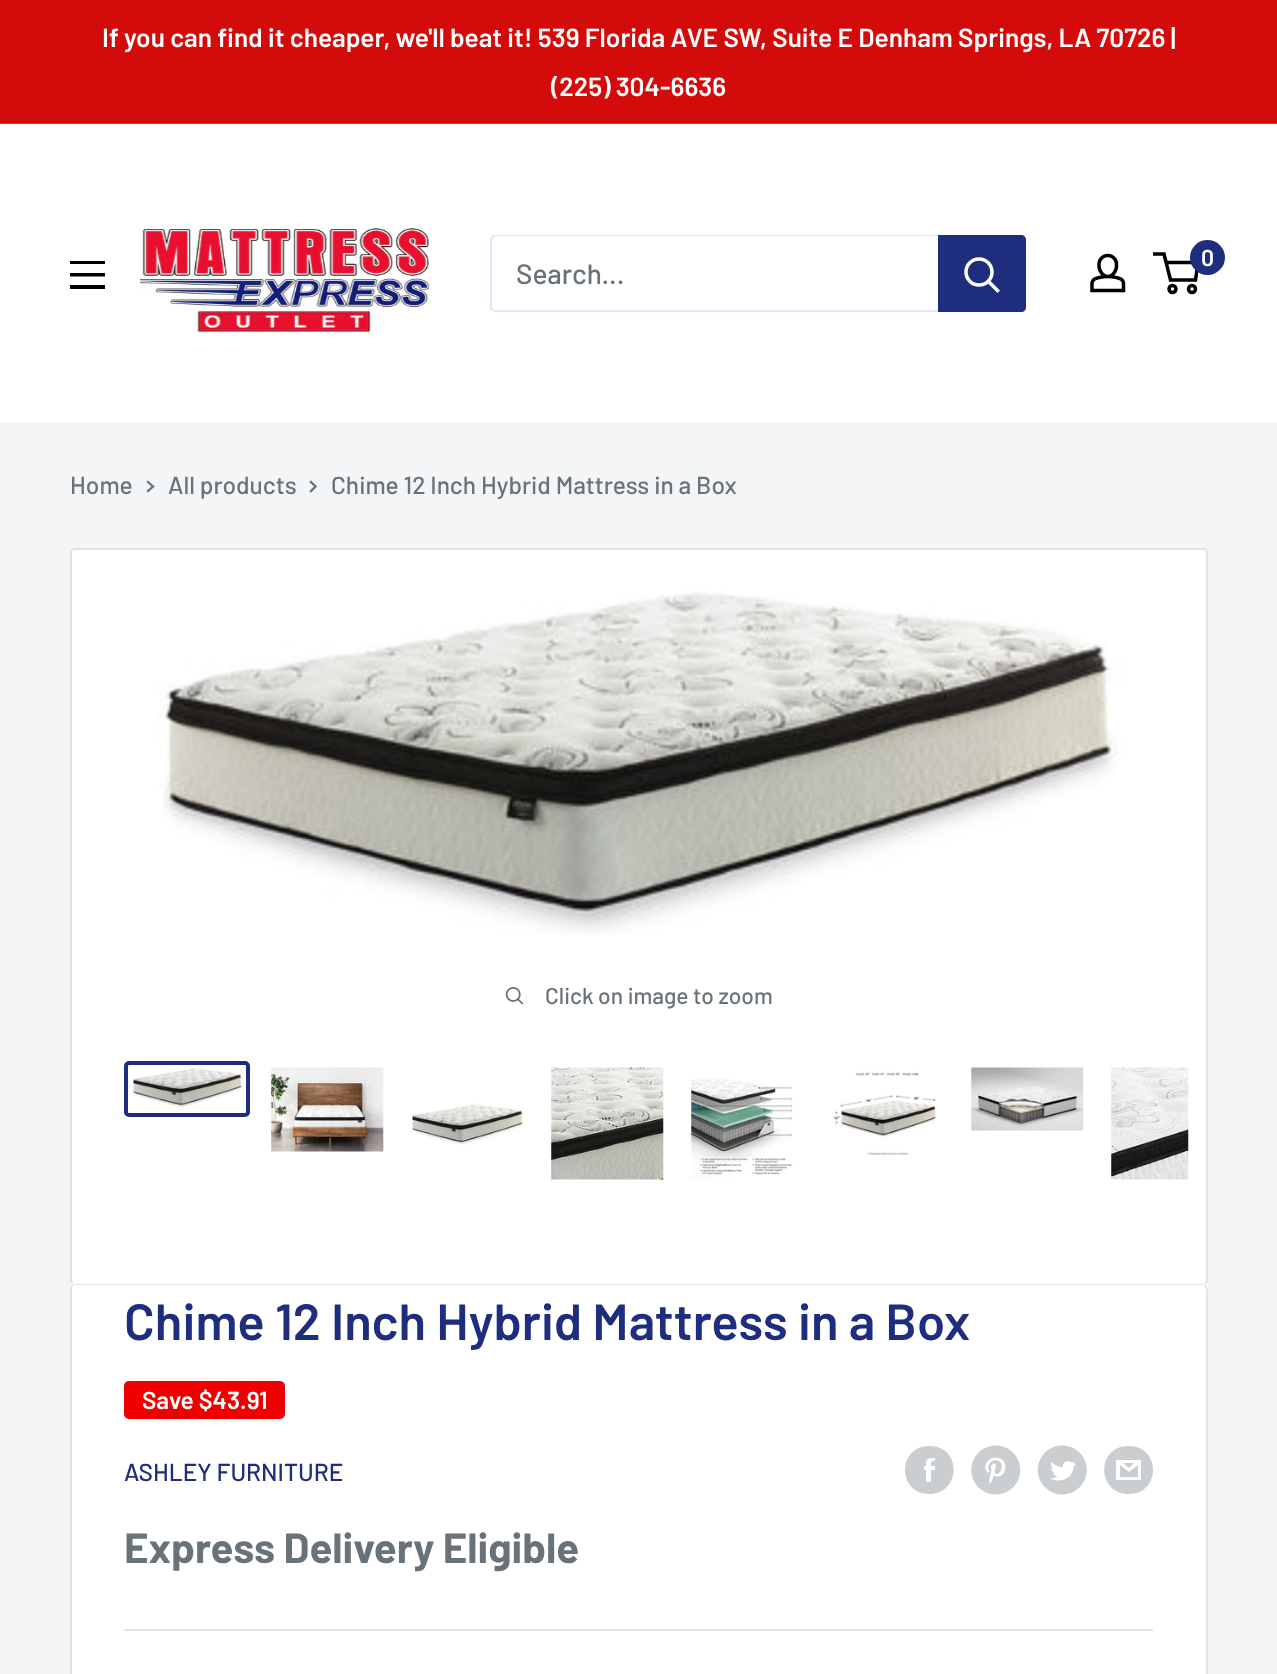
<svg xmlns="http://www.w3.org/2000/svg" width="1277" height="1674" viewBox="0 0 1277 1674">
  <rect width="100%" height="100%" fill="#f3f5f6"/>
  <path d="M0 0h1277v123H0z" fill="#d40b0b"/>
  <path d="M0 123h1277v1H0z" fill="#c53c4f"/>
  <path d="M0 124h1277v298H0z" fill="#fff"/>
  <image x="140" y="225" width="289" height="111" href="img/1.png"/>
  <image x="1090" y="253" width="36" height="40" href="img/2.png"/>
  <circle cx="1172.5" cy="289" r="3.5" fill="none" stroke="#000" stroke-width="3.5"/>
  <circle cx="1192" cy="289" r="3.5" fill="none" stroke="#000" stroke-width="3.5"/>
  <path d="M1166 262.5H1198L1195.5 280H1170.5L1164 254H1153" fill="none" stroke="#000" stroke-width="3.5"/>
  <circle cx="1207.5" cy="257.5" r="17.5" fill="#1e2d7d"/>
  <path d="M70 285H105V289H70ZM70 261H105V264H70ZM70 273H105V276.5H70Z" fill="#000" fill-rule="evenodd"/>
  <path d="M490 308C491 310 493 312 495 312H1021C1024 312 1026 310 1026 307V240C1026 238 1025 236 1023 236L1024 238V304C1024 307 1021 310 1018 310H494C493 310 491 309 490 308Z" fill="#e3e7fa"/>
  <path d="M497 236H1022C1023 236 1025 237 1025 238C1025 236 1023 235 1021 235H495C492 235 490 237 490 240V307C490 309 491 311 494 312C493 311 492 310 492 308V242C492 239 494 236 497 236Z" fill="#a3afef4d"/>
  <path d="M938 235H1021C1024 235 1026 237 1026 240V307C1026 310 1024 312 1021 312H938Z" fill="#1e2d7d"/>
  <path d="M997.5 290.5L989 282" fill="none" stroke="#fff" stroke-width="3.5" stroke-linecap="square"/>
  <circle cx="979" cy="272" r="13" fill="none" stroke="#fff" stroke-width="3.5"/>
  <path d="M148 482L153 486.5L148 491" fill="none" stroke="#677279" stroke-width="2.3" stroke-linecap="square"/>
  <path d="M311 482L315.5 486.5L311 491" fill="none" stroke="#677279" stroke-width="2.3" stroke-linecap="square"/>
  <rect x="71" y="549" width="1136" height="735" rx="4" fill="#fff" stroke="#e1e3e4" stroke-width="2"/>
  <image x="158" y="591" width="970" height="345" href="img/3.png"/>
  <image x="505" y="987" width="19" height="18" href="img/4.png"/>
  <rect x="126" y="1063" width="122" height="52" rx="3" fill="none" stroke="#1e2d7d" stroke-width="4"/>
  <image x="133" y="1068" width="109" height="40" href="img/5.png"/>
  <image x="271" y="1067" width="113" height="85" href="img/6.png"/>
  <image x="411" y="1103" width="112" height="42" href="img/7.png"/>
  <image x="551" y="1067" width="113" height="113" href="img/8.png"/>
  <image x="691" y="1077" width="103" height="102" href="img/9.png"/>
  <image x="833" y="1071" width="103" height="85" href="img/10.png"/>
  <image x="971" y="1067" width="113" height="64" href="img/11.png"/>
  <image x="1111" y="1067" width="78" height="113" href="img/12.png"/>
  <path d="M75 1283C71 1283 70 1286 70 1290C70 1287 72 1284 75 1284H1202C1205 1284 1208 1287 1208 1290L1207 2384L1208 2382V1288C1208 1285 1206 1283 1203 1283Z" fill="#fff"/>
  <rect x="70" y="1285" width="1138" height="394" rx="5" fill="#fff"/>
  <path d="M75 1284H1202C1205 1284 1208 1287 1208 1290V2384C1208 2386 1205 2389 1202 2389H75C72 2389 70 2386 70 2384V1290C70 1287 72 1284 75 1284ZM75 1284H1202C1204 1284 1206 1287 1206 1290V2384C1206 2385 1204 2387 1202 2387H75C73 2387 72 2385 72 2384V1290C72 1287 73 1284 75 1284Z" fill="#e1e3e4" fill-rule="evenodd"/>
  <rect x="124" y="1381" width="161" height="38" rx="5" fill="#e00"/>
  <path d="M929 1494C897 1494 897 1446 929 1446C962 1445 962 1494 929 1494ZM935 1466H931C931 1463 930 1461 935 1461V1458C927 1458 926 1459 926 1466H924V1470H926V1482H931V1470H935Z" fill="#caced0" fill-rule="evenodd"/>
  <image x="971" y="1445" width="50" height="50" href="img/13.png"/>
  <image x="1037" y="1445" width="50" height="50" href="img/14.png"/>
  <path d="M1129 1494C1096 1494 1096 1445 1129 1446C1161 1446 1161 1494 1129 1494ZM1123 1463H1134L1129 1468ZM1138 1465V1477H1120V1465L1129 1472ZM1141 1460H1116V1480H1141Z" fill="#caced0"/>
  <path d="M124 1629h1029v2H124z" fill="#e1e3e4"/>
  <g font-family="Barlow" font-size="26.25" font-weight="600" fill="#fff">
    <text x="102" y="47">If you can find it cheaper, we'll beat it! 539 Florida AVE SW, Suite E Denham Springs, LA 70726 |</text>
    <text x="551" y="96">(225) 304-6636</text>
  </g>
  <text x="1201" y="266" font-family="Barlow" font-size="23" font-weight="600" fill="#fff">0</text>
  <text x="516" y="284" font-family="Barlow" font-size="28" font-weight="500" fill="#677279">Search...</text>
  <g font-family="Barlow" font-size="24.5" font-weight="500" fill="#677279">
    <text x="70" y="494">Home</text>
    <text x="168" y="494">All products</text>
    <text x="331" y="494">Chime 12 Inch Hybrid Mattress in a Box</text>
  </g>
  <text x="545" y="1004" font-family="Barlow" font-size="22.75" font-weight="500" fill="#677279">Click on image to zoom</text>
  <text x="124" y="1340" font-family="Barlow" font-size="50.75" font-weight="600" fill="#1e2d7d">Chime 12 Inch Hybrid Mattress in a Box</text>
  <text x="142" y="1409" font-family="Barlow" font-size="24.5" font-weight="600" fill="#fff">Save $43.91</text>
  <text x="124" y="1481" font-family="Barlow" font-size="24.5" font-weight="500" fill="#1e2d7d">ASHLEY FURNITURE</text>
  <text x="124" y="1563" font-family="Barlow" font-size="42" font-weight="bold" fill="#677279">Express Delivery Eligible</text>
</svg>
